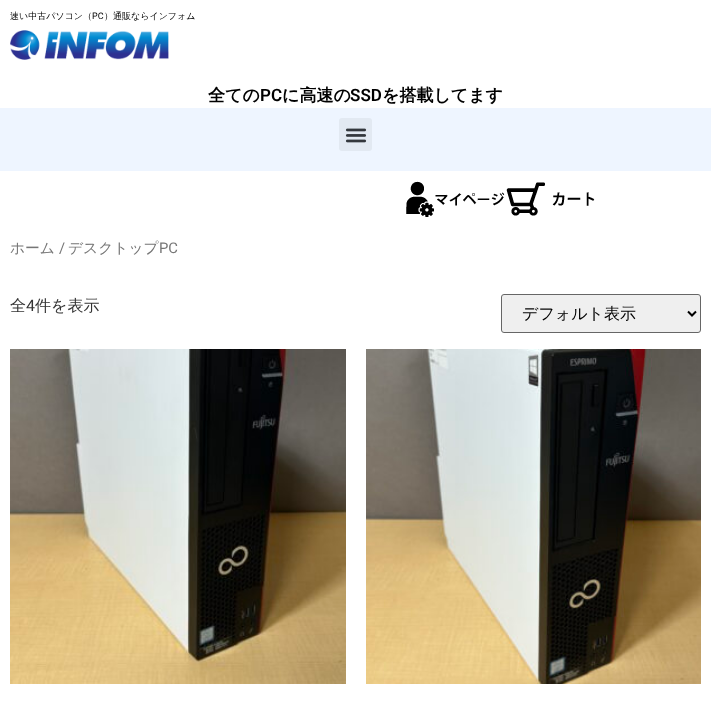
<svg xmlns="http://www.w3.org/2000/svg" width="711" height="702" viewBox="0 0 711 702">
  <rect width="100%" height="100%" fill="#fff"/>
  <image x="10" y="30" width="159" height="30" href="img/1.png"/>
  <path d="M0 108h711v63H0z" fill="#eef5ff"/>
  <rect x="339" y="118" width="33" height="33" rx="3" fill="#e2e9f2"/>
  <image x="345" y="128" width="22" height="15" href="img/2.png"/>
  <image x="406" y="181" width="99" height="36" href="img/3.png"/>
  <image x="506" y="182" width="89" height="34" href="img/4.png"/>
  <rect x="501.5" y="294.5" width="199" height="38" rx="2.5" fill="#efefef" stroke="#666"/>
  <path d="M688 311.5L692 315.5L696 311.5" fill="none" stroke="#000" stroke-width="2"/>
  <image x="10" y="349" width="336" height="335" href="img/5.png"/>
  <image x="366" y="349" width="335" height="335" href="img/6.png"/>
  <text x="10" y="19" font-family="WenQuanYi Zen Hei" font-size="9" font-weight="500" fill="#000">速い中古パソコン（</text>
  <text x="92" y="19" font-family="Roboto" font-size="9" fill="#000">PC</text>
  <text x="104" y="19" font-family="WenQuanYi Zen Hei" font-size="9" font-weight="500" fill="#000">）通販ならインフォム</text>
  <text x="208" y="101" font-family="WenQuanYi Zen Hei" font-size="17" font-weight="bold" fill="#000">全ての</text>
  <text x="260" y="101" font-family="Roboto" font-size="17" font-weight="600" fill="#000">PC</text>
  <text x="282" y="101" font-family="WenQuanYi Zen Hei" font-size="17" font-weight="bold" fill="#000">に高速の</text>
  <text x="350" y="101" font-family="Roboto" font-size="17" font-weight="600" fill="#000">SSD</text>
  <text x="382" y="101" font-family="WenQuanYi Zen Hei" font-size="17" font-weight="bold" fill="#000">を搭載してます</text>
  <text x="10" y="253" font-family="WenQuanYi Zen Hei" font-size="14.75" font-weight="500" fill="#767676">ホーム</text>
  <text x="59" y="253" font-family="Roboto" font-size="14.75" fill="#767676">/</text>
  <text x="68" y="253" font-family="WenQuanYi Zen Hei" font-size="14.75" font-weight="500" fill="#767676">デスクトップ</text>
  <text x="159" y="253" font-family="Roboto" font-size="14.75" fill="#767676">PC</text>
  <text x="10" y="311" font-family="WenQuanYi Zen Hei" font-size="16" font-weight="500" fill="#333">全</text>
  <text x="26" y="311" font-family="Roboto" font-size="16" fill="#333">4</text>
  <text x="35" y="311" font-family="WenQuanYi Zen Hei" font-size="16" font-weight="500" fill="#333">件を表示</text>
  <text x="522" y="319" font-family="WenQuanYi Zen Hei" font-size="16" font-weight="500" fill="#000">デフォルト表示</text>
</svg>
